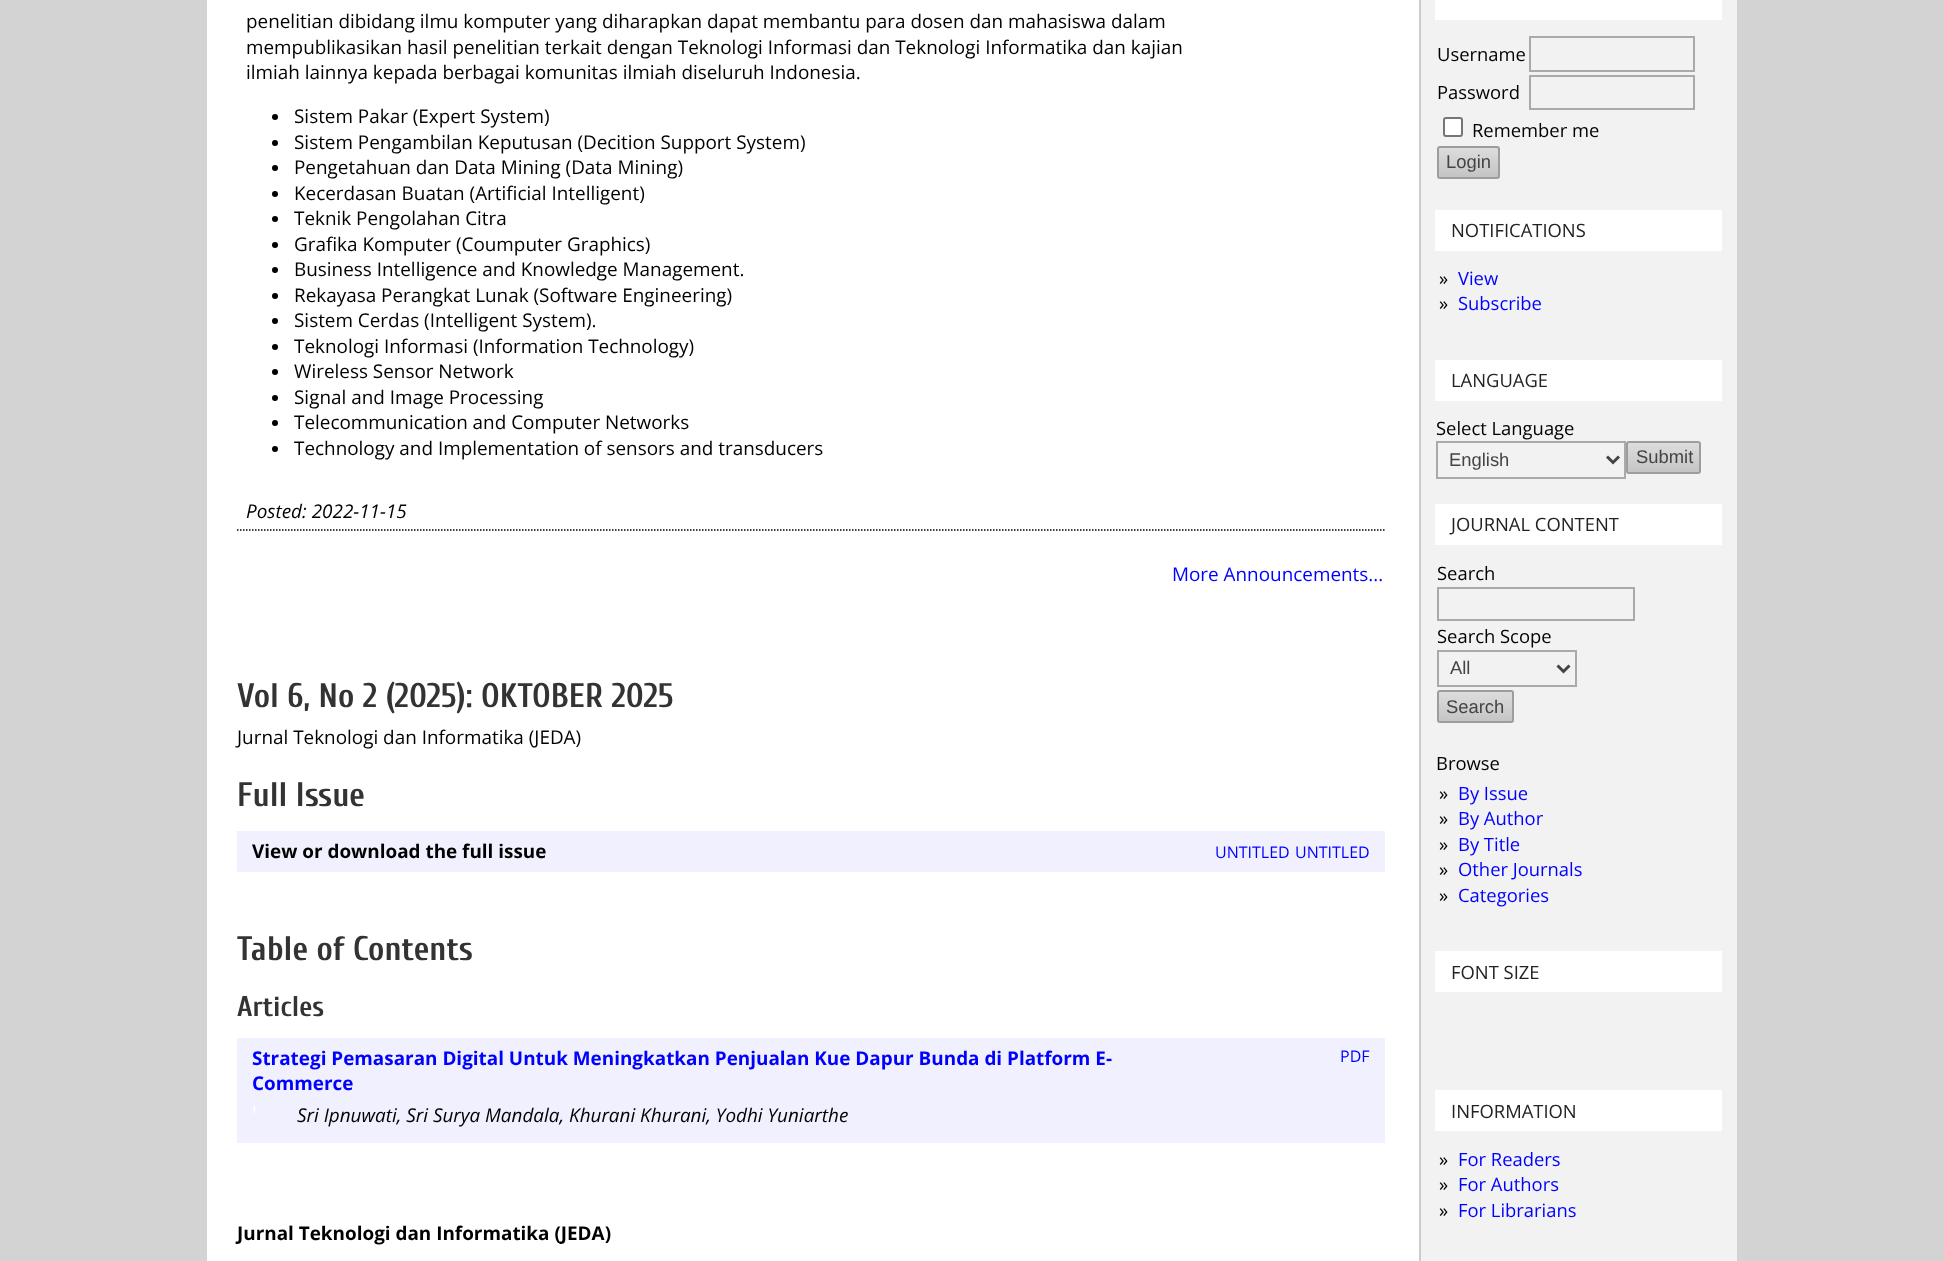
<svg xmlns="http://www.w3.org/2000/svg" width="1944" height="1261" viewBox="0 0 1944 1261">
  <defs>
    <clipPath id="clip1"><rect x="1437" y="146" width="63" height="33" rx="3"/></clipPath>
    <linearGradient id="g1" gradientUnits="userSpaceOnUse" x1="1469" y1="147" x2="1469" y2="177"><stop offset="0" stop-color="#ddd"/><stop offset="1" stop-color="#c4c4c4"/></linearGradient>
    <clipPath id="clip2"><rect x="1626" y="441" width="75" height="33" rx="3"/></clipPath>
    <linearGradient id="g2" gradientUnits="userSpaceOnUse" x1="1664" y1="443" x2="1664" y2="473"><stop offset="0" stop-color="#ddd"/><stop offset="1" stop-color="#c4c4c4"/></linearGradient>
    <clipPath id="clip3"><rect x="1437" y="690" width="77" height="33" rx="3"/></clipPath>
    <linearGradient id="g3" gradientUnits="userSpaceOnUse" x1="1475" y1="692" x2="1475" y2="722"><stop offset="0" stop-color="#ddd"/><stop offset="1" stop-color="#c4c4c4"/></linearGradient>
  </defs>
  <rect width="100%" height="100%" fill="#d3d3d3"/>
  <path d="M207 0h1212v1261H207z" fill="#fff"/>
  <circle cx="275" cy="117" r="3" fill="#000"/>
  <circle cx="275" cy="143" r="3" fill="#000"/>
  <circle cx="275" cy="168" r="3" fill="#000"/>
  <circle cx="275" cy="194" r="3" fill="#000"/>
  <circle cx="275" cy="219" r="3" fill="#000"/>
  <circle cx="275" cy="245" r="3" fill="#000"/>
  <circle cx="275" cy="270" r="3" fill="#000"/>
  <circle cx="275" cy="296" r="3" fill="#000"/>
  <circle cx="275" cy="321" r="3" fill="#000"/>
  <circle cx="275" cy="347" r="3" fill="#000"/>
  <circle cx="275" cy="372" r="3" fill="#000"/>
  <circle cx="275" cy="398" r="3" fill="#000"/>
  <circle cx="275" cy="423" r="3" fill="#000"/>
  <circle cx="275" cy="449" r="3" fill="#000"/>
  <path d="M237 530H1384.5" fill="none" stroke="#000" stroke-width="1.5" stroke-dasharray="1.5 1.5"/>
  <path d="M237 831h1148v41H237z" fill="#f0f0ff"/>
  <path d="M237 1038h1148v105H237z" fill="#f0f0ff"/>
  <image x="253" y="1105" width="2" height="8" href="img/1.png"/>
  <path d="M1421 0h316v1261H1421z" fill="#f2f2f2"/>
  <path d="M1419 0h2v1261H1419z" fill="#ccc"/>
  <path d="M1435 0h287v20H1435z" fill="#fff"/>
  <path d="M1530 37h164v34H1530z" fill="none" stroke="#aaa" stroke-width="2"/>
  <path d="M1530 76h164v33H1530z" fill="none" stroke="#aaa" stroke-width="2"/>
  <rect x="1444" y="118" width="18" height="18" rx="2" fill="#fff" stroke="#767676" stroke-width="2"/>
  <g clip-path="url(#clip1)">
    <path d="M1437 147h63v30H1437z" fill="url(#g1)"/>
  </g>
  <rect x="1438" y="147" width="61" height="31" rx="2" fill="none" stroke="#9d9d9d" stroke-width="2"/>
  <path d="M1435 210h287v41H1435z" fill="#fff"/>
  <path d="M1435 360h287v41H1435z" fill="#fff"/>
  <path d="M1437 442h188v36H1437z" fill="none" stroke="#aaa" stroke-width="2"/>
  <path d="M1607 456.5L1613 462.5L1619 456.5" fill="none" stroke="#444" stroke-width="3"/>
  <g clip-path="url(#clip2)">
    <path d="M1626 443h75v30H1626z" fill="url(#g2)"/>
  </g>
  <rect x="1627" y="442" width="73" height="31" rx="2" fill="none" stroke="#9d9d9d" stroke-width="2"/>
  <path d="M1435 504h287v41H1435z" fill="#fff"/>
  <path d="M1438 588h196v32H1438z" fill="none" stroke="#aaa" stroke-width="2"/>
  <path d="M1438 651h138v35H1438z" fill="none" stroke="#aaa" stroke-width="2"/>
  <path d="M1557.5 665.5L1563.5 671.5L1569.5 665.5" fill="none" stroke="#444" stroke-width="3"/>
  <g clip-path="url(#clip3)">
    <path d="M1437 692h77v30H1437z" fill="url(#g3)"/>
  </g>
  <rect x="1438" y="691" width="75" height="31" rx="2" fill="none" stroke="#9d9d9d" stroke-width="2"/>
  <path d="M1435 951h287v41H1435z" fill="#fff"/>
  <path d="M1435 1090h287v41H1435z" fill="#fff"/>
  <g font-family="Open Sans" font-size="18.9" fill="#000">
    <text x="246" y="28">penelitian dibidang ilmu komputer yang diharapkan dapat membantu para dosen dan mahasiswa dalam</text>
    <text x="246" y="54">mempublikasikan hasil penelitian terkait dengan Teknologi Informasi dan Teknologi Informatika dan kajian</text>
    <text x="246" y="79">ilmiah lainnya kepada berbagai komunitas ilmiah diseluruh Indonesia.</text>
    <text x="294" y="123">Sistem Pakar (Expert System)</text>
    <text x="294" y="149">Sistem Pengambilan Keputusan (Decition Support System)</text>
    <text x="294" y="174">Pengetahuan dan Data Mining (Data Mining)</text>
    <text x="294" y="200">Kecerdasan Buatan (Artificial Intelligent)</text>
    <text x="294" y="225">Teknik Pengolahan Citra</text>
    <text x="294" y="251">Grafika Komputer (Coumputer Graphics)</text>
    <text x="294" y="276">Business Intelligence and Knowledge Management.</text>
    <text x="294" y="302">Rekayasa Perangkat Lunak (Software Engineering)</text>
    <text x="294" y="327">Sistem Cerdas (Intelligent System).</text>
    <text x="294" y="353">Teknologi Informasi (Information Technology)</text>
    <text x="294" y="378">Wireless Sensor Network</text>
    <text x="294" y="404">Signal and Image Processing</text>
    <text x="294" y="429">Telecommunication and Computer Networks</text>
    <text x="294" y="455">Technology and Implementation of sensors and transducers</text>
  </g>
  <text x="246" y="518" font-family="Open Sans" font-size="18.9" font-style="italic" fill="#000">Posted: 2022-11-15</text>
  <text x="1172" y="581" font-family="Open Sans" font-size="18.9" fill="#00f">More Announcements...</text>
  <text x="237" y="707" font-family="Cuprum" font-size="34" font-weight="bold" fill="#333">Vol 6, No 2 (2025): OKTOBER 2025</text>
  <text x="237" y="744" font-family="Open Sans" font-size="18.9" fill="#000">Jurnal Teknologi dan Informatika (JEDA)</text>
  <text x="237" y="806" font-family="Cuprum" font-size="34" font-weight="bold" fill="#333">Full Issue</text>
  <text x="252" y="858" font-family="Open Sans" font-size="18.9" font-weight="bold" fill="#000">View or download the full issue</text>
  <g font-family="Open Sans" font-size="16" fill="#00f">
    <text x="1215" y="858">UNTITLED</text>
    <text x="1295" y="858">UNTITLED</text>
  </g>
  <text x="237" y="960" font-family="Cuprum" font-size="34" font-weight="bold" fill="#333">Table of Contents</text>
  <text x="237" y="1016" font-family="Cuprum" font-size="28.5" font-weight="bold" fill="#333">Articles</text>
  <g font-family="Open Sans" font-size="18.9" font-weight="bold" fill="#00f">
    <text x="252" y="1065">Strategi Pemasaran Digital Untuk Meningkatkan Penjualan Kue Dapur Bunda di Platform E-</text>
    <text x="252" y="1090">Commerce</text>
  </g>
  <text x="297" y="1122" font-family="Open Sans" font-size="18.9" font-style="italic" fill="#000">Sri Ipnuwati, Sri Surya Mandala, Khurani Khurani, Yodhi Yuniarthe</text>
  <text x="1340" y="1062" font-family="Open Sans" font-size="16" fill="#00f">PDF</text>
  <text x="237" y="1240" font-family="Open Sans" font-size="18.9" font-weight="bold" fill="#000">Jurnal Teknologi dan Informatika (JEDA)</text>
  <g font-family="Open Sans" font-size="18.4" fill="#000">
    <text x="1437" y="61">Username</text>
    <text x="1437" y="99">Password</text>
    <text x="1472" y="137">Remember me</text>
  </g>
  <text x="1446" y="168" font-family="Liberation Sans" font-size="18.4" fill="#444">Login</text>
  <text x="1451" y="237" font-family="Open Sans" font-size="18.4" fill="#222">NOTIFICATIONS</text>
  <text x="1439" y="285" font-family="Open Sans" font-size="18.4" fill="#000">»</text>
  <text x="1458" y="285" font-family="Open Sans" font-size="18.4" fill="#00f">View</text>
  <text x="1439" y="310" font-family="Open Sans" font-size="18.4" fill="#000">»</text>
  <text x="1458" y="310" font-family="Open Sans" font-size="18.4" fill="#00f">Subscribe</text>
  <text x="1451" y="387" font-family="Open Sans" font-size="18.4" fill="#222">LANGUAGE</text>
  <text x="1436" y="435" font-family="Open Sans" font-size="18.4" fill="#000">Select Language</text>
  <g font-family="Liberation Sans" font-size="18.4" fill="#444">
    <text x="1449" y="466">English</text>
    <text x="1636" y="463">Submit</text>
  </g>
  <text x="1451" y="531" font-family="Open Sans" font-size="18.4" fill="#222">JOURNAL CONTENT</text>
  <g font-family="Open Sans" font-size="18.4" fill="#000">
    <text x="1437" y="580">Search</text>
    <text x="1437" y="643">Search Scope</text>
  </g>
  <g font-family="Liberation Sans" font-size="18.4" fill="#444">
    <text x="1450" y="674">All</text>
    <text x="1446" y="713">Search</text>
  </g>
  <g font-family="Open Sans" font-size="18.4" fill="#000">
    <text x="1436" y="770">Browse</text>
    <text x="1439" y="800">»</text>
  </g>
  <text x="1458" y="800" font-family="Open Sans" font-size="18.4" fill="#00f">By Issue</text>
  <text x="1439" y="825" font-family="Open Sans" font-size="18.4" fill="#000">»</text>
  <text x="1458" y="825" font-family="Open Sans" font-size="18.4" fill="#00f">By Author</text>
  <text x="1439" y="851" font-family="Open Sans" font-size="18.4" fill="#000">»</text>
  <text x="1458" y="851" font-family="Open Sans" font-size="18.4" fill="#00f">By Title</text>
  <text x="1439" y="876" font-family="Open Sans" font-size="18.4" fill="#000">»</text>
  <text x="1458" y="876" font-family="Open Sans" font-size="18.4" fill="#00f">Other Journals</text>
  <text x="1439" y="902" font-family="Open Sans" font-size="18.4" fill="#000">»</text>
  <text x="1458" y="902" font-family="Open Sans" font-size="18.4" fill="#00f">Categories</text>
  <g font-family="Open Sans" font-size="18.4" fill="#222">
    <text x="1451" y="979">FONT SIZE</text>
    <text x="1451" y="1118">INFORMATION</text>
  </g>
  <text x="1439" y="1166" font-family="Open Sans" font-size="18.4" fill="#000">»</text>
  <text x="1458" y="1166" font-family="Open Sans" font-size="18.4" fill="#00f">For Readers</text>
  <text x="1439" y="1191" font-family="Open Sans" font-size="18.4" fill="#000">»</text>
  <text x="1458" y="1191" font-family="Open Sans" font-size="18.4" fill="#00f">For Authors</text>
  <text x="1439" y="1217" font-family="Open Sans" font-size="18.4" fill="#000">»</text>
  <text x="1458" y="1217" font-family="Open Sans" font-size="18.4" fill="#00f">For Librarians</text>
</svg>
